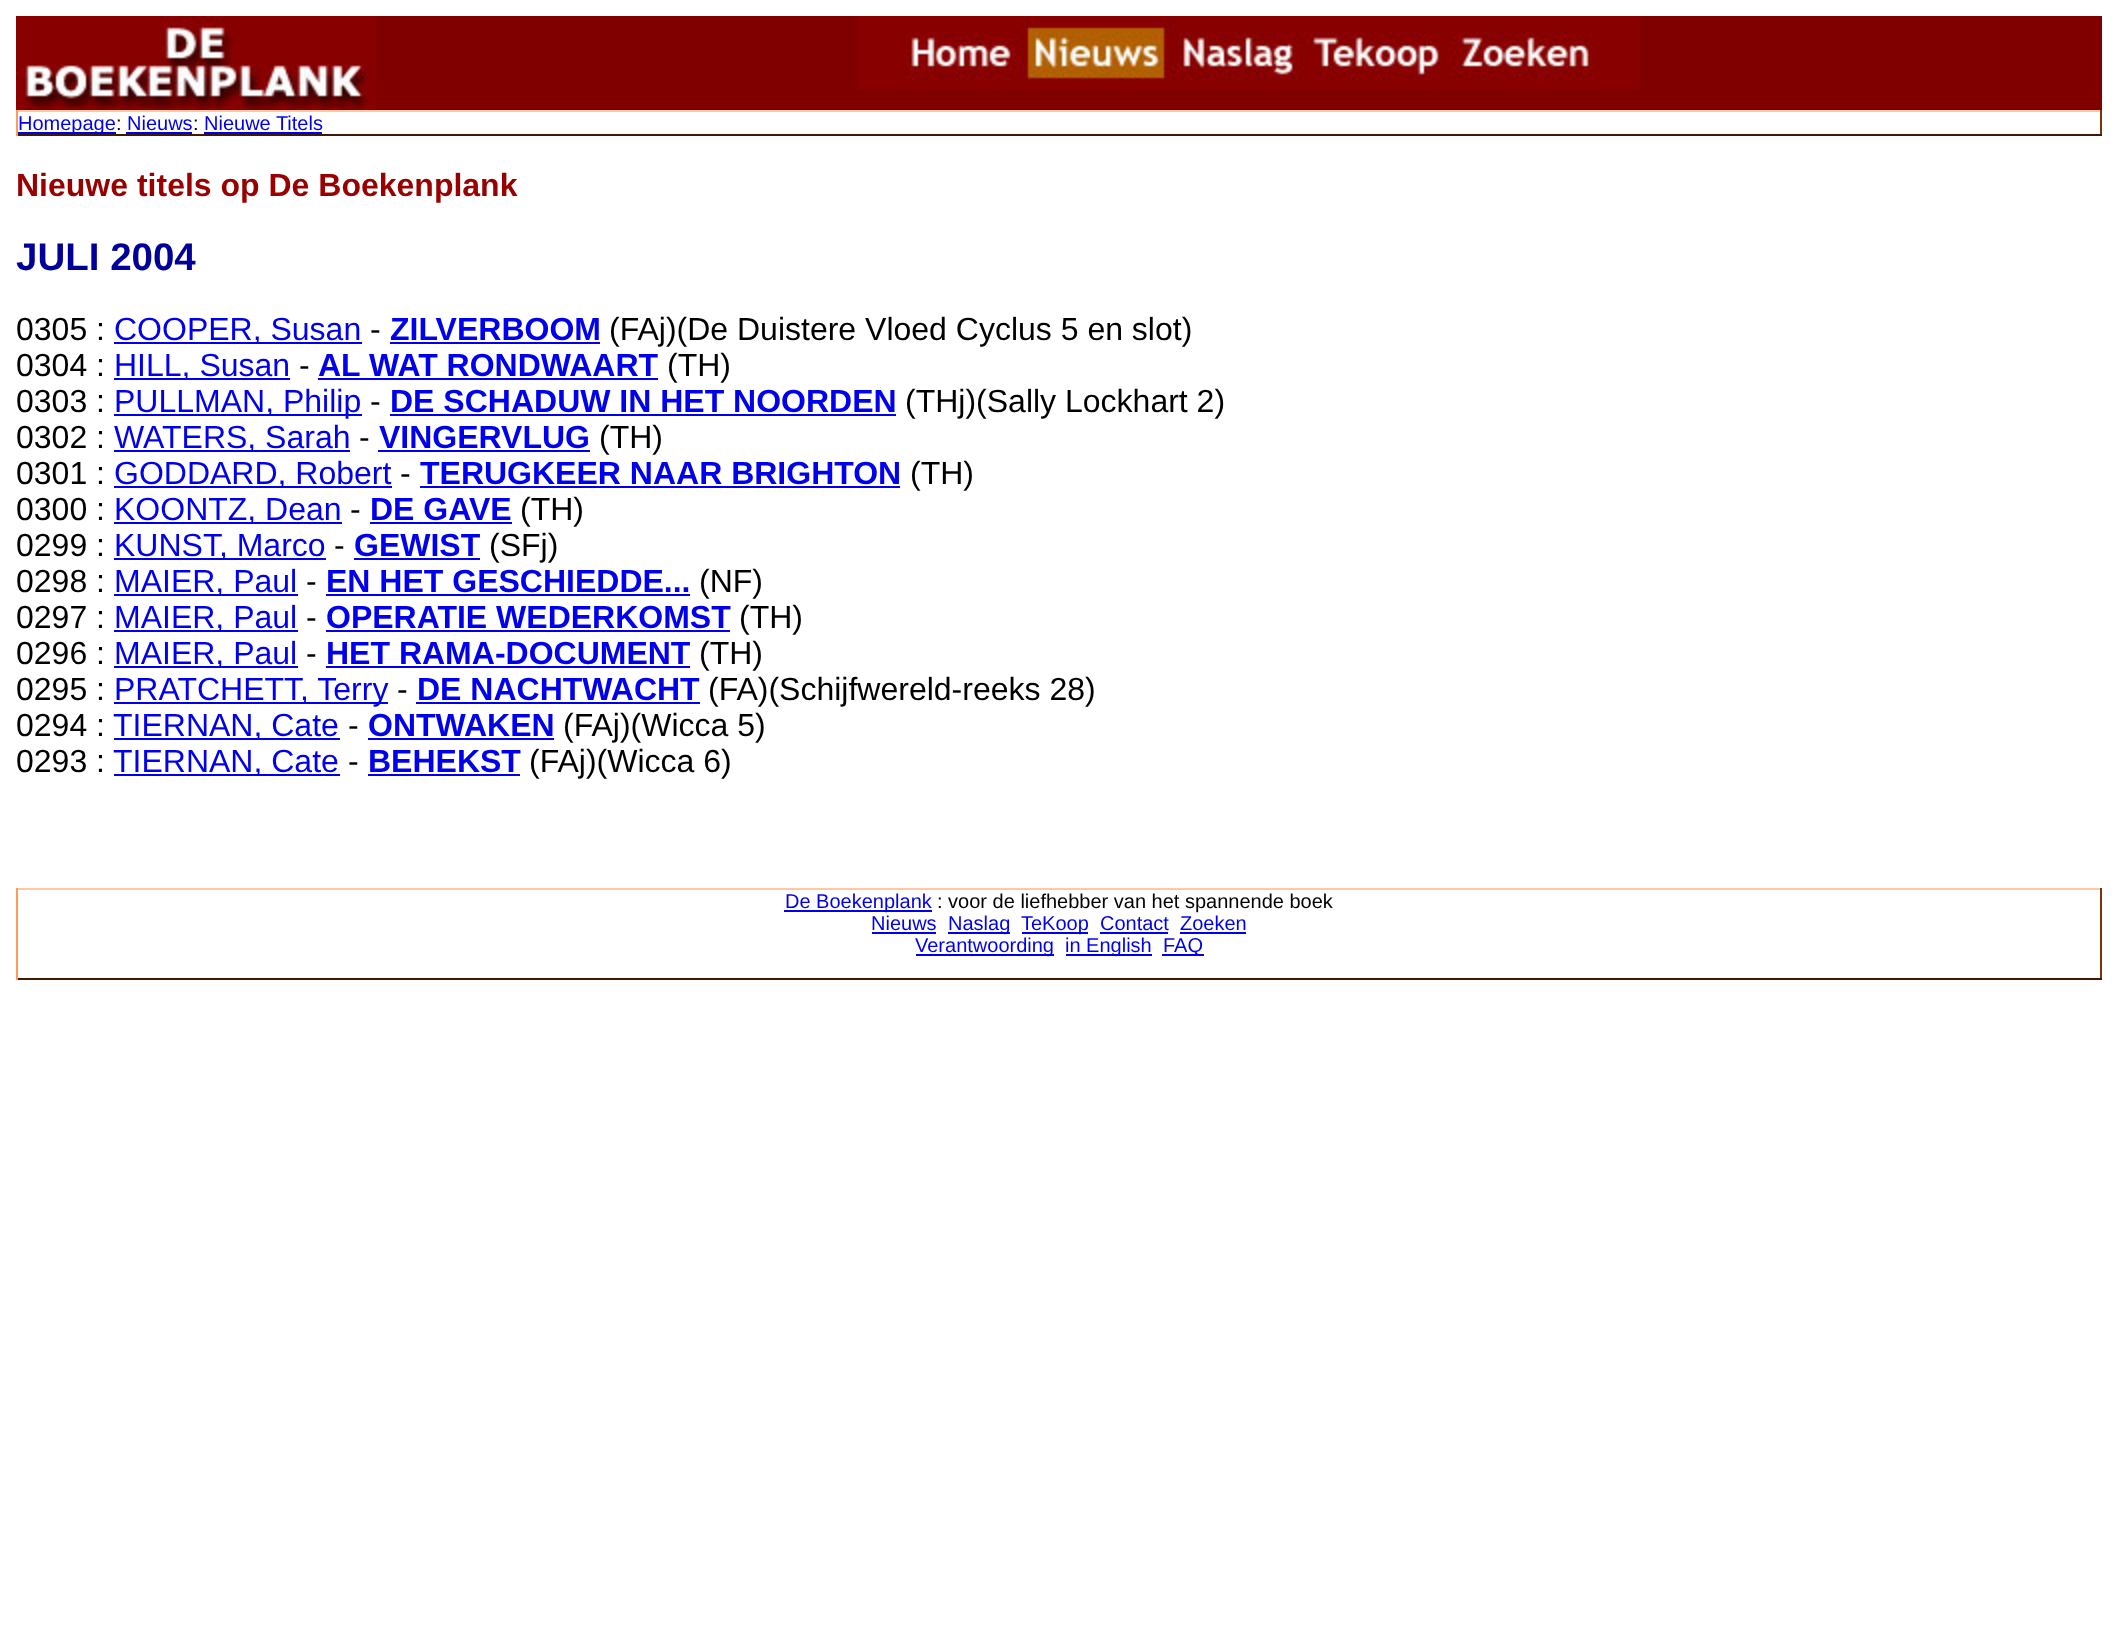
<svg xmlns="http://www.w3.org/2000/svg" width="2117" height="1630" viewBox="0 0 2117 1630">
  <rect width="100%" height="100%" fill="#fff"/>
  <path d="M376 16h1726v94H376z" fill="#800000"/>
  <image x="16" y="16" width="360" height="94" href="img/1.png"/>
  <image x="858" y="16" width="782" height="74" href="img/2.png"/>
  <path d="M16 110h2086v2H16z" fill="#ffc8a4"/>
  <path d="M2100 110h2v26H2100z" fill="#7d3302"/>
  <path d="M16 134h2086v2H16z" fill="#3f1a01"/>
  <path d="M16 110h2v26H16z" fill="#ff9a57"/>
  <path d="M18 132h98v2H18z" fill="#00e"/>
  <path d="M126 132h66v2H126z" fill="#00e"/>
  <path d="M204 132h118v2H204z" fill="#00e"/>
  <path d="M114 342h248v2H114z" fill="#00e"/>
  <path d="M390 342h210v2H390z" fill="#00e"/>
  <path d="M114 378h176v2H114z" fill="#00e"/>
  <path d="M318 378h340v2H318z" fill="#00e"/>
  <path d="M114 414h248v2H114z" fill="#00e"/>
  <path d="M390 414h506v2H390z" fill="#00e"/>
  <path d="M114 450h236v2H114z" fill="#00e"/>
  <path d="M378 450h212v2H378z" fill="#00e"/>
  <path d="M114 486h278v2H114z" fill="#00e"/>
  <path d="M420 486h480v2H420z" fill="#00e"/>
  <path d="M114 522h228v2H114z" fill="#00e"/>
  <path d="M370 522h142v2H370z" fill="#00e"/>
  <path d="M114 558h212v2H114z" fill="#00e"/>
  <path d="M354 558h126v2H354z" fill="#00e"/>
  <path d="M114 594h184v2H114z" fill="#00e"/>
  <path d="M326 594h364v2H326z" fill="#00e"/>
  <path d="M114 630h184v2H114z" fill="#00e"/>
  <path d="M326 630h404v2H326z" fill="#00e"/>
  <path d="M114 666h184v2H114z" fill="#00e"/>
  <path d="M326 666h364v2H326z" fill="#00e"/>
  <path d="M114 702h274v2H114z" fill="#00e"/>
  <path d="M416 702h284v2H416z" fill="#00e"/>
  <path d="M114 738h226v2H114z" fill="#00e"/>
  <path d="M368 738h186v2H368z" fill="#00e"/>
  <path d="M114 774h226v2H114z" fill="#00e"/>
  <path d="M368 774h152v2H368z" fill="#00e"/>
  <path d="M16 888h2086v2H16z" fill="#ffc8a4"/>
  <path d="M2100 888h2v92H2100z" fill="#7d3302"/>
  <path d="M16 978h2086v2H16z" fill="#3f1a01"/>
  <path d="M16 888h2v92H16z" fill="#ff9a57"/>
  <path d="M784 910h148v2H784z" fill="#00e"/>
  <path d="M872 932h64v2H872z" fill="#00e"/>
  <path d="M948 932h62v2H948z" fill="#00e"/>
  <path d="M1022 932h66v2H1022z" fill="#00e"/>
  <path d="M1100 932h68v2H1100z" fill="#00e"/>
  <path d="M1180 932h66v2H1180z" fill="#00e"/>
  <path d="M916 954h138v2H916z" fill="#00e"/>
  <path d="M1066 954h86v2H1066z" fill="#00e"/>
  <path d="M1162 954h42v2H1162z" fill="#00e"/>
  <text x="18" y="130" font-family="Liberation Sans" font-size="20" fill="#00e">Homepage</text>
  <text x="116" y="130" font-family="Liberation Sans" font-size="20" fill="#000">:</text>
  <text x="127" y="130" font-family="Liberation Sans" font-size="20" fill="#00e">Nieuws</text>
  <text x="193" y="130" font-family="Liberation Sans" font-size="20" fill="#000">:</text>
  <text x="204" y="130" font-family="Liberation Sans" font-size="20" fill="#00e">Nieuwe Titels</text>
  <text x="16" y="196" font-family="Liberation Sans" font-size="32" font-weight="bold" fill="#900">Nieuwe titels op De Boekenplank</text>
  <text x="16" y="270" font-family="Liberation Sans" font-size="38.5" font-weight="bold" fill="#009">JULI 2004</text>
  <text x="16" y="340" font-family="Liberation Sans" font-size="32" fill="#000">0305 :</text>
  <text x="114" y="340" font-family="Liberation Sans" font-size="32" fill="#00e">COOPER, Susan</text>
  <text x="370" y="340" font-family="Liberation Sans" font-size="32" fill="#000">-</text>
  <text x="390" y="340" font-family="Liberation Sans" font-size="32" font-weight="bold" fill="#00e">ZILVERBOOM</text>
  <g font-family="Liberation Sans" font-size="32" fill="#000">
    <text x="609" y="340">(FAj)(De Duistere Vloed Cyclus 5 en slot)</text>
    <text x="16" y="376">0304 :</text>
  </g>
  <text x="114" y="376" font-family="Liberation Sans" font-size="32" fill="#00e">HILL, Susan</text>
  <text x="299" y="376" font-family="Liberation Sans" font-size="32" fill="#000">-</text>
  <text x="318" y="376" font-family="Liberation Sans" font-size="32" font-weight="bold" fill="#00e">AL WAT RONDWAART</text>
  <g font-family="Liberation Sans" font-size="32" fill="#000">
    <text x="667" y="376">(TH)</text>
    <text x="16" y="412">0303 :</text>
  </g>
  <text x="114" y="412" font-family="Liberation Sans" font-size="32" fill="#00e">PULLMAN, Philip</text>
  <text x="370" y="412" font-family="Liberation Sans" font-size="32" fill="#000">-</text>
  <text x="390" y="412" font-family="Liberation Sans" font-size="32" font-weight="bold" fill="#00e">DE SCHADUW IN HET NOORDEN</text>
  <g font-family="Liberation Sans" font-size="32" fill="#000">
    <text x="905" y="412">(THj)(Sally Lockhart 2)</text>
    <text x="16" y="448">0302 :</text>
  </g>
  <text x="114" y="448" font-family="Liberation Sans" font-size="32" fill="#00e">WATERS, Sarah</text>
  <text x="359" y="448" font-family="Liberation Sans" font-size="32" fill="#000">-</text>
  <text x="379" y="448" font-family="Liberation Sans" font-size="32" font-weight="bold" fill="#00e">VINGERVLUG</text>
  <g font-family="Liberation Sans" font-size="32" fill="#000">
    <text x="599" y="448">(TH)</text>
    <text x="16" y="484">0301 :</text>
  </g>
  <text x="114" y="484" font-family="Liberation Sans" font-size="32" fill="#00e">GODDARD, Robert</text>
  <text x="400" y="484" font-family="Liberation Sans" font-size="32" fill="#000">-</text>
  <text x="420" y="484" font-family="Liberation Sans" font-size="32" font-weight="bold" fill="#00e">TERUGKEER NAAR BRIGHTON</text>
  <g font-family="Liberation Sans" font-size="32" fill="#000">
    <text x="910" y="484">(TH)</text>
    <text x="16" y="520">0300 :</text>
  </g>
  <text x="114" y="520" font-family="Liberation Sans" font-size="32" fill="#00e">KOONTZ, Dean</text>
  <text x="350" y="520" font-family="Liberation Sans" font-size="32" fill="#000">-</text>
  <text x="370" y="520" font-family="Liberation Sans" font-size="32" font-weight="bold" fill="#00e">DE GAVE</text>
  <g font-family="Liberation Sans" font-size="32" fill="#000">
    <text x="520" y="520">(TH)</text>
    <text x="16" y="556">0299 :</text>
  </g>
  <text x="114" y="556" font-family="Liberation Sans" font-size="32" fill="#00e">KUNST, Marco</text>
  <text x="334" y="556" font-family="Liberation Sans" font-size="32" fill="#000">-</text>
  <text x="354" y="556" font-family="Liberation Sans" font-size="32" font-weight="bold" fill="#00e">GEWIST</text>
  <g font-family="Liberation Sans" font-size="32" fill="#000">
    <text x="489" y="556">(SFj)</text>
    <text x="16" y="592">0298 :</text>
  </g>
  <text x="114" y="592" font-family="Liberation Sans" font-size="32" fill="#00e">MAIER, Paul</text>
  <text x="306" y="592" font-family="Liberation Sans" font-size="32" fill="#000">-</text>
  <text x="326" y="592" font-family="Liberation Sans" font-size="32" font-weight="bold" fill="#00e">EN HET GESCHIEDDE...</text>
  <g font-family="Liberation Sans" font-size="32" fill="#000">
    <text x="699" y="592">(NF)</text>
    <text x="16" y="628">0297 :</text>
  </g>
  <text x="114" y="628" font-family="Liberation Sans" font-size="32" fill="#00e">MAIER, Paul</text>
  <text x="306" y="628" font-family="Liberation Sans" font-size="32" fill="#000">-</text>
  <text x="326" y="628" font-family="Liberation Sans" font-size="32" font-weight="bold" fill="#00e">OPERATIE WEDERKOMST</text>
  <g font-family="Liberation Sans" font-size="32" fill="#000">
    <text x="739" y="628">(TH)</text>
    <text x="16" y="664">0296 :</text>
  </g>
  <text x="114" y="664" font-family="Liberation Sans" font-size="32" fill="#00e">MAIER, Paul</text>
  <text x="306" y="664" font-family="Liberation Sans" font-size="32" fill="#000">-</text>
  <text x="326" y="664" font-family="Liberation Sans" font-size="32" font-weight="bold" fill="#00e">HET RAMA-DOCUMENT</text>
  <g font-family="Liberation Sans" font-size="32" fill="#000">
    <text x="699" y="664">(TH)</text>
    <text x="16" y="700">0295 :</text>
  </g>
  <text x="114" y="700" font-family="Liberation Sans" font-size="32" fill="#00e">PRATCHETT, Terry</text>
  <text x="397" y="700" font-family="Liberation Sans" font-size="32" fill="#000">-</text>
  <text x="417" y="700" font-family="Liberation Sans" font-size="32" font-weight="bold" fill="#00e">DE NACHTWACHT</text>
  <g font-family="Liberation Sans" font-size="32" fill="#000">
    <text x="708" y="700">(FA)(Schijfwereld-reeks 28)</text>
    <text x="16" y="736">0294 :</text>
  </g>
  <text x="113" y="736" font-family="Liberation Sans" font-size="32" fill="#00e">TIERNAN, Cate</text>
  <text x="348" y="736" font-family="Liberation Sans" font-size="32" fill="#000">-</text>
  <text x="368" y="736" font-family="Liberation Sans" font-size="32" font-weight="bold" fill="#00e">ONTWAKEN</text>
  <g font-family="Liberation Sans" font-size="32" fill="#000">
    <text x="563" y="736">(FAj)(Wicca 5)</text>
    <text x="16" y="772">0293 :</text>
  </g>
  <text x="113" y="772" font-family="Liberation Sans" font-size="32" fill="#00e">TIERNAN, Cate</text>
  <text x="348" y="772" font-family="Liberation Sans" font-size="32" fill="#000">-</text>
  <text x="368" y="772" font-family="Liberation Sans" font-size="32" font-weight="bold" fill="#00e">BEHEKST</text>
  <text x="529" y="772" font-family="Liberation Sans" font-size="32" fill="#000">(FAj)(Wicca 6)</text>
  <text x="785" y="908" font-family="Liberation Sans" font-size="20" fill="#00e">De Boekenplank</text>
  <text x="937" y="908" font-family="Liberation Sans" font-size="20" fill="#000">: voor de liefhebber van het spannende boek</text>
  <g font-family="Liberation Sans" font-size="20" fill="#00e">
    <text x="871" y="930">Nieuws</text>
    <text x="948" y="930">Naslag</text>
    <text x="1021" y="930">TeKoop</text>
    <text x="1100" y="930">Contact</text>
    <text x="1180" y="930">Zoeken</text>
    <text x="915" y="952">Verantwoording</text>
    <text x="1065" y="952">in English</text>
    <text x="1163" y="952">FAQ</text>
  </g>
</svg>
